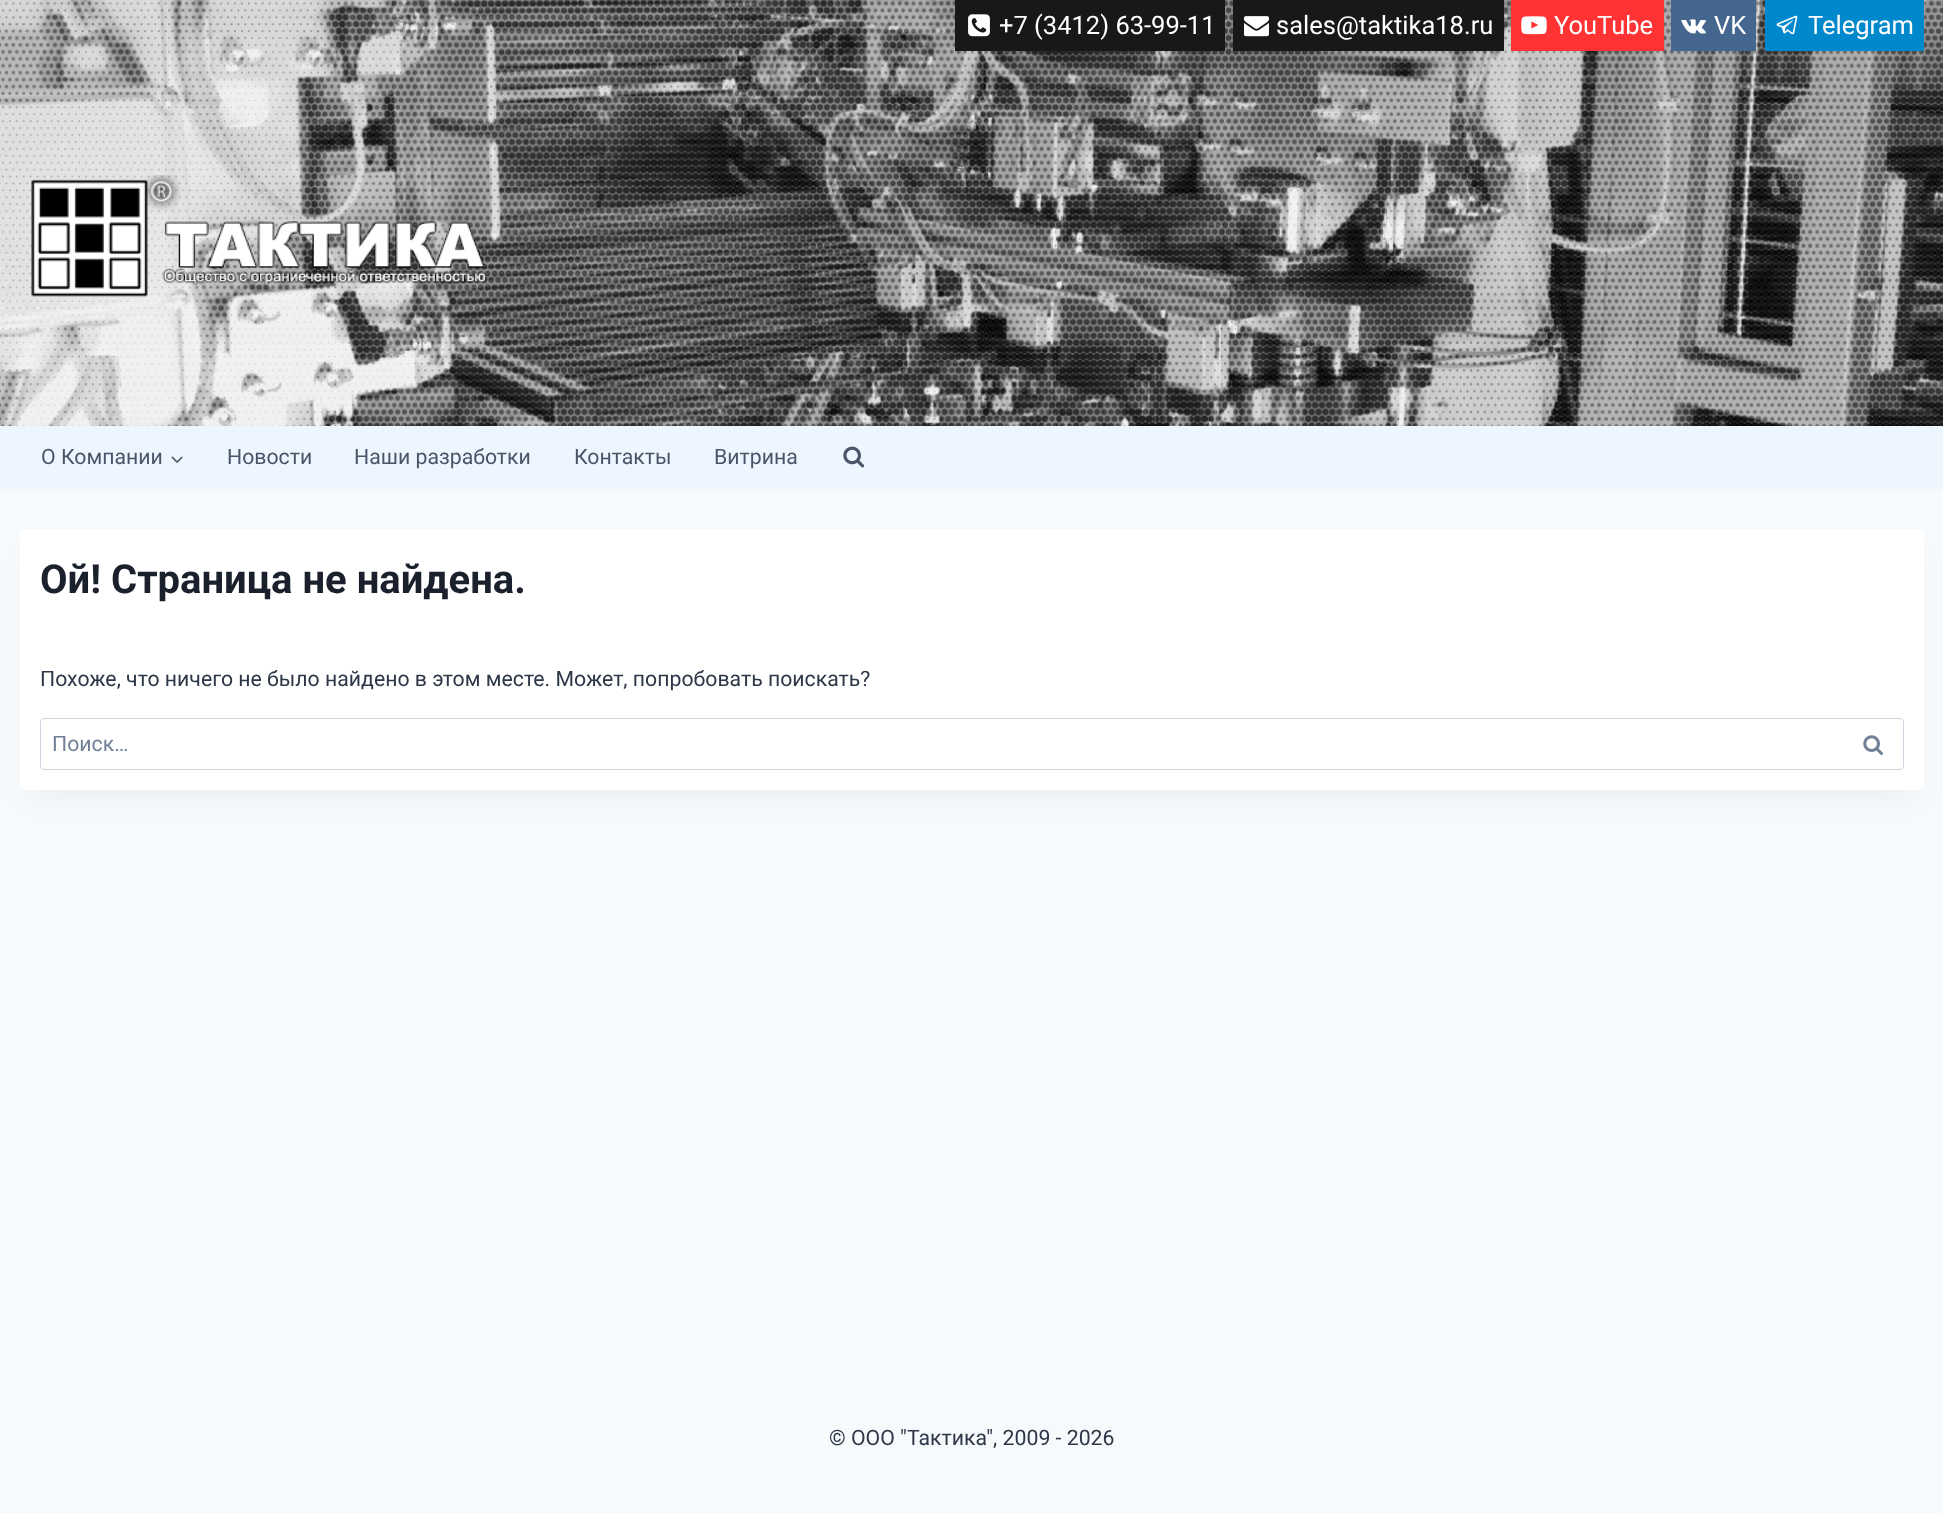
<svg xmlns="http://www.w3.org/2000/svg" width="1943" height="1513" viewBox="0 0 1943 1513">
  <rect width="100%" height="100%" fill="#f7fafc"/>
  <image x="0" y="0" width="1943" height="426" href="img/1.png"/>
  <path d="M955 0h270v51H955z" fill="#181818"/>
  <image x="968" y="14" width="22" height="23" href="img/2.png"/>
  <path d="M1233 0h271v51H1233z" fill="#181818"/>
  <image x="1244" y="16" width="25" height="21" href="img/3.png"/>
  <path d="M1511 0h153v51H1511z" fill="#f33"/>
  <image x="1521" y="16" width="26" height="19" href="img/4.png"/>
  <path d="M1671 0h85v51H1671z" fill="#45668e"/>
  <image x="1681" y="19" width="25" height="15" href="img/5.png"/>
  <path d="M1765 0h159v51H1765z" fill="#08c"/>
  <image x="1776" y="15" width="22" height="20" href="img/6.png"/>
  <image x="31" y="175" width="456" height="122" href="img/7.png"/>
  <path d="M0 426h1943v63H0z" fill="#edf5ff"/>
  <image x="171" y="456" width="12" height="7" href="img/8.png"/>
  <image x="843" y="446" width="22" height="22" href="img/9.png"/>
  <path d="M33 560h1878v236H33z" fill="#0000000d" filter="blur(15.5px)"/>
  <rect x="20" y="529" width="1904" height="261" rx="5" fill="#fff"/>
  <rect x="40.5" y="718.5" width="1863" height="51" rx="3.5" fill="none" stroke="#cbd5e0"/>
  <image x="1863" y="735" width="20" height="20" href="img/10.png"/>
  <g font-family="Roboto" font-size="25.5" fill="#fff">
    <text x="999" y="34">+7 (3412) 63-99-11</text>
    <text x="1276" y="34">sales@taktika18.ru</text>
    <text x="1554" y="34">YouTube</text>
    <text x="1714" y="34">VK</text>
    <text x="1808" y="34">Telegram</text>
  </g>
  <g font-family="Roboto" font-size="21.25" fill="#4a5568">
    <text x="41" y="464">О Компании</text>
    <text x="227" y="464">Новости</text>
    <text x="354" y="464">Наши разработки</text>
    <text x="574" y="464">Контакты</text>
    <text x="714" y="464">Витрина</text>
  </g>
  <text x="40" y="593" font-family="Roboto" font-size="40" font-weight="bold" fill="#1a202c">Ой! Страница не найдена.</text>
  <text x="40" y="686" font-family="Roboto" font-size="21.25" fill="#2d3748">Похоже, что ничего не было найдено в этом месте. Может, попробовать поискать?</text>
  <text x="52" y="751" font-family="Roboto" font-size="21.25" fill="#718096">Поиск…</text>
  <text x="829" y="1445" font-family="Roboto" font-size="21.25" fill="#2d3748">© ООО "Тактика", 2009 - 2026</text>
</svg>
